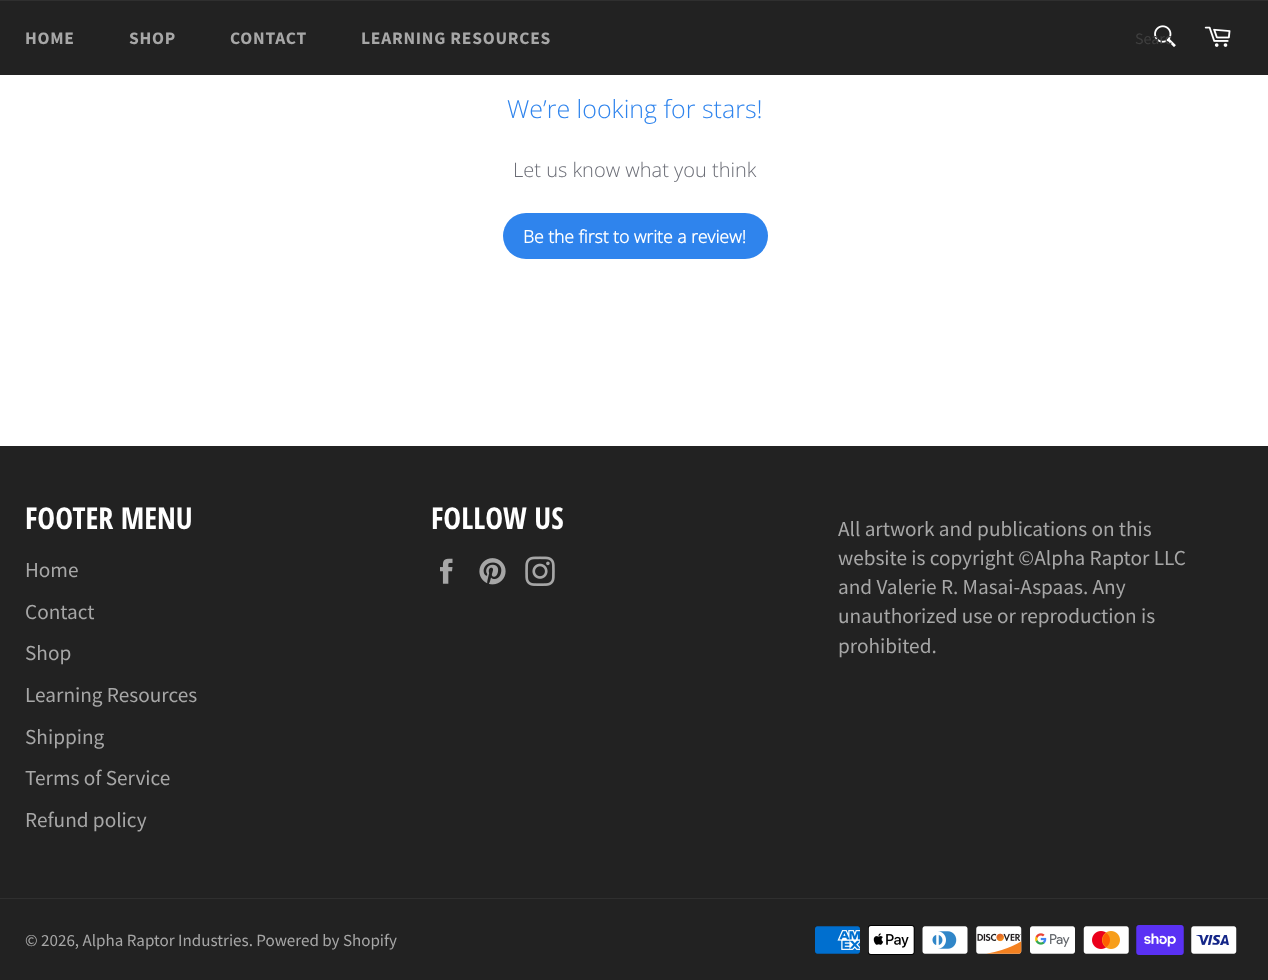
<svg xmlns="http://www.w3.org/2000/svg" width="1268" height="980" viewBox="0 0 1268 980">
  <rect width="100%" height="100%" fill="#fff"/>
  <path d="M0 1h1268v74H0z" fill="#222"/>
  <path d="M0 0h1268v1H0z" fill="#2f2f2f"/>
  <image x="1154" y="25" width="22" height="22" href="img/1.png"/>
  <image x="1204" y="26" width="27" height="21" href="img/2.png"/>
  <rect x="503" y="213" width="265" height="46" rx="23" fill="#2f84ed"/>
  <path d="M0 446h1268v534H0z" fill="#222"/>
  <image x="440" y="558" width="13" height="26" href="img/3.png"/>
  <image x="479" y="558" width="27" height="27" href="img/4.png"/>
  <image x="525" y="556" width="30" height="30" href="img/5.png"/>
  <path d="M0 898h1268v1H0z" fill="#2f2f2f"/>
  <image x="815" y="926" width="45" height="28" href="img/6.png"/>
  <image x="868" y="925" width="47" height="30" href="img/7.png"/>
  <image x="922" y="926" width="46" height="28" href="img/8.png"/>
  <image x="976" y="926" width="46" height="28" href="img/9.png"/>
  <image x="1030" y="926" width="45" height="28" href="img/10.png"/>
  <image x="1083" y="926" width="46" height="28" href="img/11.png"/>
  <image x="1136" y="925" width="48" height="30" href="img/12.png"/>
  <image x="1191" y="926" width="46" height="28" href="img/13.png"/>
  <g font-family="Source Sans Pro" font-size="17.5" font-weight="bold" letter-spacing="0.75" fill="#a7a7a7">
    <text x="25" y="44">HOME</text>
    <text x="129" y="44">SHOP</text>
    <text x="230" y="44">CONTACT</text>
    <text x="361" y="44">LEARNING RESOURCES</text>
  </g>
  <text x="1135" y="44" font-family="Source Sans Pro" font-size="16" fill="#3f3f3f">Searc</text>
  <text x="507" y="118" font-family="Open Sans" font-size="25" font-weight="300" fill="#2f84ed">We’re looking for stars!</text>
  <text x="513" y="177" font-family="Open Sans" font-size="20" font-weight="300" fill="#6b6d76">Let us know what you think</text>
  <text x="523" y="243" font-family="Open Sans" font-size="17.5" font-weight="bold" fill="#fff">Be the first to write a review!</text>
  <text x="25" y="529" font-family="Open Sans Condensed" font-size="30" font-weight="bold" fill="#fff">FOOTER MENU</text>
  <g font-family="Source Sans Pro" font-size="21.25" fill="#a7a7a7">
    <text x="25" y="577">Home</text>
    <text x="25" y="619">Contact</text>
    <text x="25" y="660">Shop</text>
    <text x="25" y="702">Learning Resources</text>
    <text x="25" y="744">Shipping</text>
    <text x="25" y="785">Terms of Service</text>
    <text x="25" y="827">Refund policy</text>
  </g>
  <text x="431" y="529" font-family="Open Sans Condensed" font-size="30" font-weight="bold" fill="#fff">FOLLOW US</text>
  <g font-family="Source Sans Pro" font-size="21.25" fill="#a7a7a7">
    <text x="838" y="536">All artwork and publications on this</text>
    <text x="838" y="565">website is copyright ©Alpha Raptor LLC</text>
    <text x="838" y="594">and Valerie R. Masai-Aspaas. Any</text>
    <text x="838" y="623">unauthorized use or reproduction is</text>
    <text x="838" y="653">prohibited.</text>
  </g>
  <text x="25" y="946" font-family="Source Sans Pro" font-size="17" fill="#a7a7a7">© 2026, Alpha Raptor Industries. Powered by Shopify</text>
</svg>
